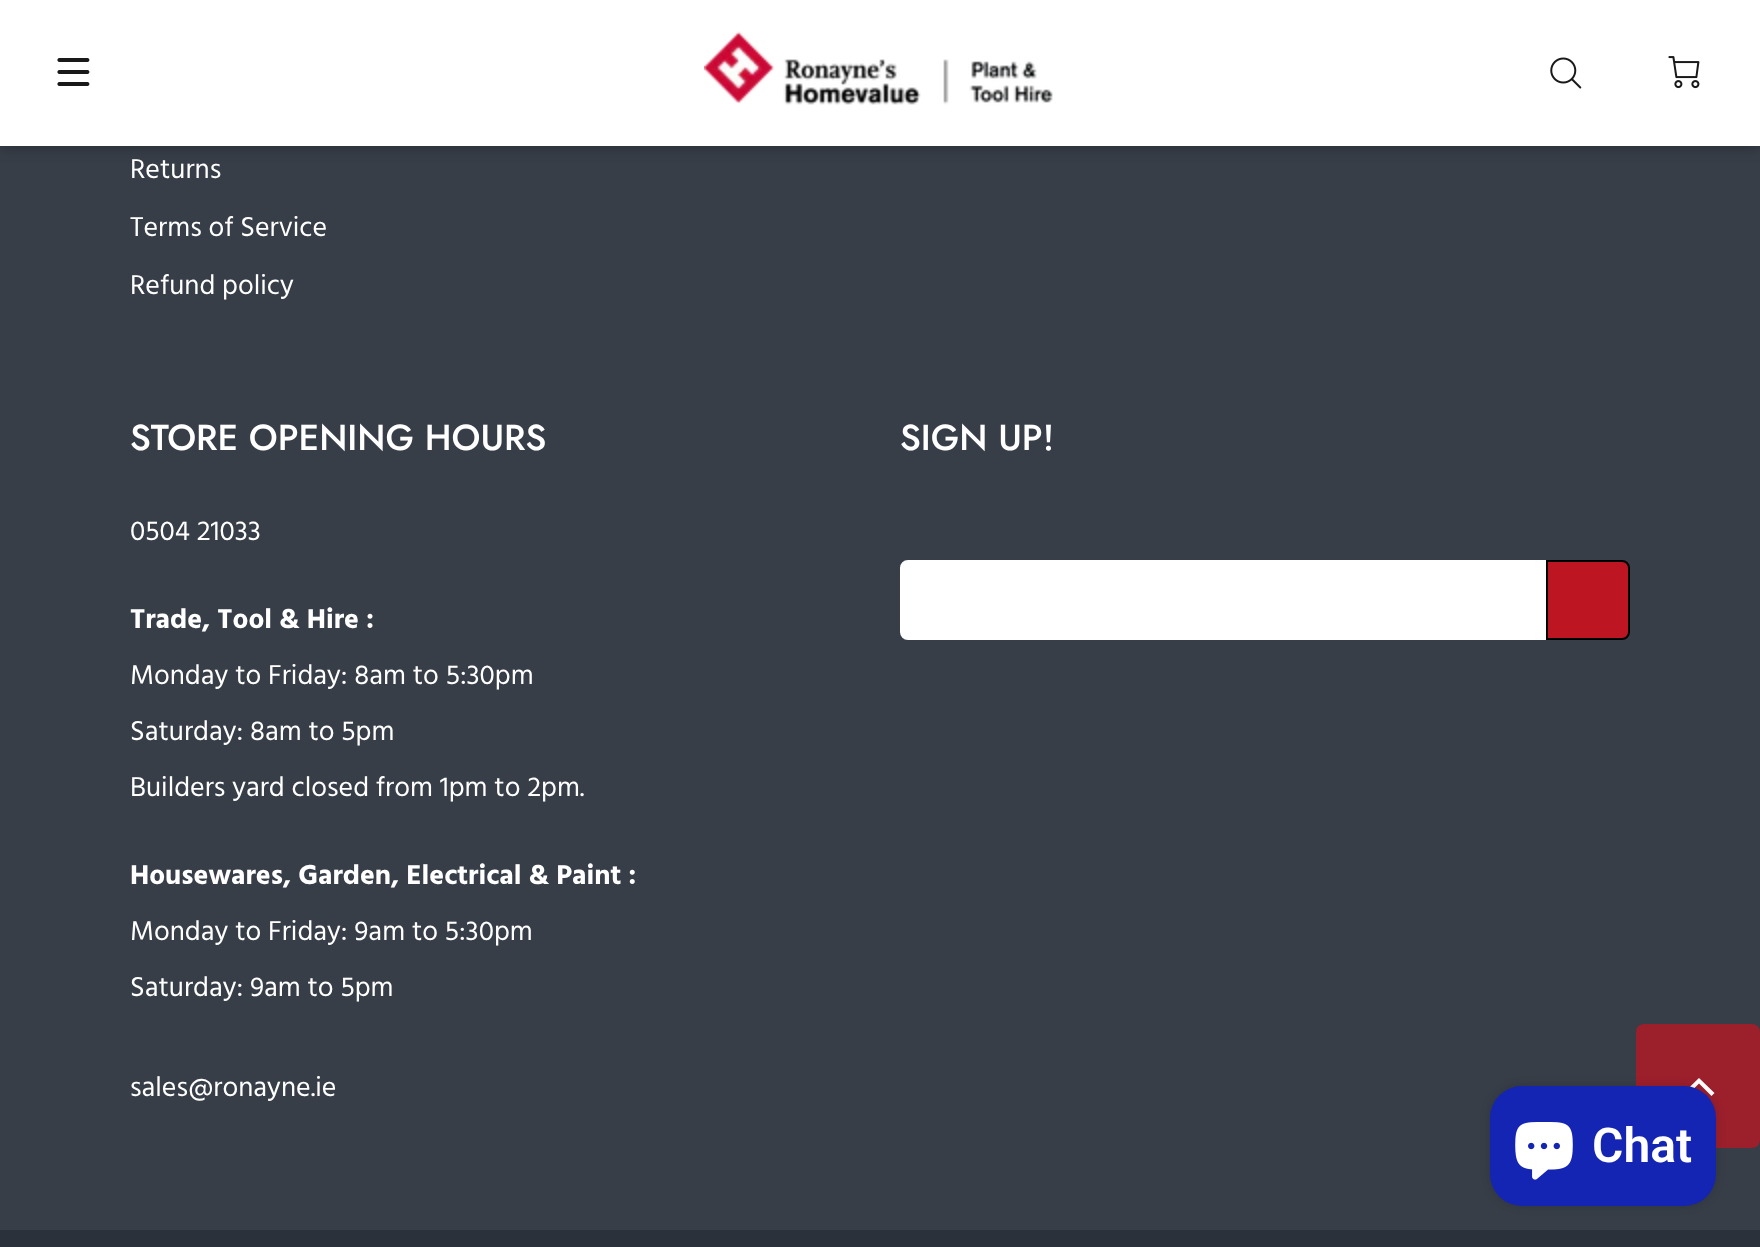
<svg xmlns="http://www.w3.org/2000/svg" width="1760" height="1247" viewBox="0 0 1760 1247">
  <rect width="100%" height="100%" fill="#373e48"/>
  <path d="M0 0h1760v146H0z" fill="#0000004d" filter="blur(8px)"/>
  <path d="M0 0h1760v146H0z" fill="#fff"/>
  <image x="57" y="58" width="33" height="28" href="img/1.png"/>
  <image x="704" y="31" width="349" height="74" href="img/2.png"/>
  <image x="1550" y="57" width="32" height="32" href="img/3.png"/>
  <image x="1668" y="56" width="32" height="33" href="img/4.png"/>
  <path d="M908 561H1545V639H908C904 639 901 636 901 632V568C901 564 904 561 908 561Z" fill="#fff" stroke="#fff" stroke-width="2"/>
  <path d="M1547 561H1622C1626 561 1629 564 1629 568V632C1629 636 1626 639 1622 639H1547Z" fill="#be1522" stroke="#000" stroke-width="2"/>
  <path d="M0 1230h1760v17H0z" fill="#2a313a"/>
  <rect x="1636" y="1024" width="124" height="124" rx="8" fill="#9c1f2c"/>
  <path d="M1711.5 1096L1699 1083.5L1686.5 1096L1683.5 1093L1699 1078L1714.5 1093Z" fill="#fff"/>
  <rect x="1490" y="1086" width="226" height="120" rx="32" fill="#00000026" filter="blur(5px)"/>
  <rect x="1490" y="1086" width="226" height="120" rx="32" fill="#1424b3"/>
  <image x="1515" y="1122" width="58" height="58" href="img/5.png"/>
  <g font-family="Hind" font-size="28" fill="#fff">
    <text x="130" y="178">Returns</text>
    <text x="130" y="236">Terms of Service</text>
    <text x="130" y="294">Refund policy</text>
  </g>
  <text x="130" y="450" font-family="Jost" font-size="36" font-weight="500" fill="#fff">STORE OPENING HOURS</text>
  <text x="130" y="540" font-family="Hind" font-size="28" fill="#fff">0504 21033</text>
  <text x="130" y="628" font-family="Hind" font-size="28" font-weight="bold" fill="#fff">Trade, Tool &amp; Hire :</text>
  <g font-family="Hind" font-size="28" fill="#fff">
    <text x="130" y="684">Monday to Friday: 8am to 5:30pm</text>
    <text x="130" y="740">Saturday: 8am to 5pm</text>
    <text x="130" y="796">Builders yard closed from 1pm to 2pm.</text>
  </g>
  <text x="130" y="884" font-family="Hind" font-size="28" font-weight="bold" fill="#fff">Housewares, Garden, Electrical &amp; Paint :</text>
  <g font-family="Hind" font-size="28" fill="#fff">
    <text x="130" y="940">Monday to Friday: 9am to 5:30pm</text>
    <text x="130" y="996">Saturday: 9am to 5pm</text>
    <text x="130" y="1096">sales@ronayne.ie</text>
  </g>
  <text x="900" y="450" font-family="Jost" font-size="36" font-weight="500" fill="#fff">SIGN UP!</text>
  <text x="1592" y="1162" font-family="Roboto" font-size="48" font-weight="600" fill="#fff">Chat</text>
</svg>
